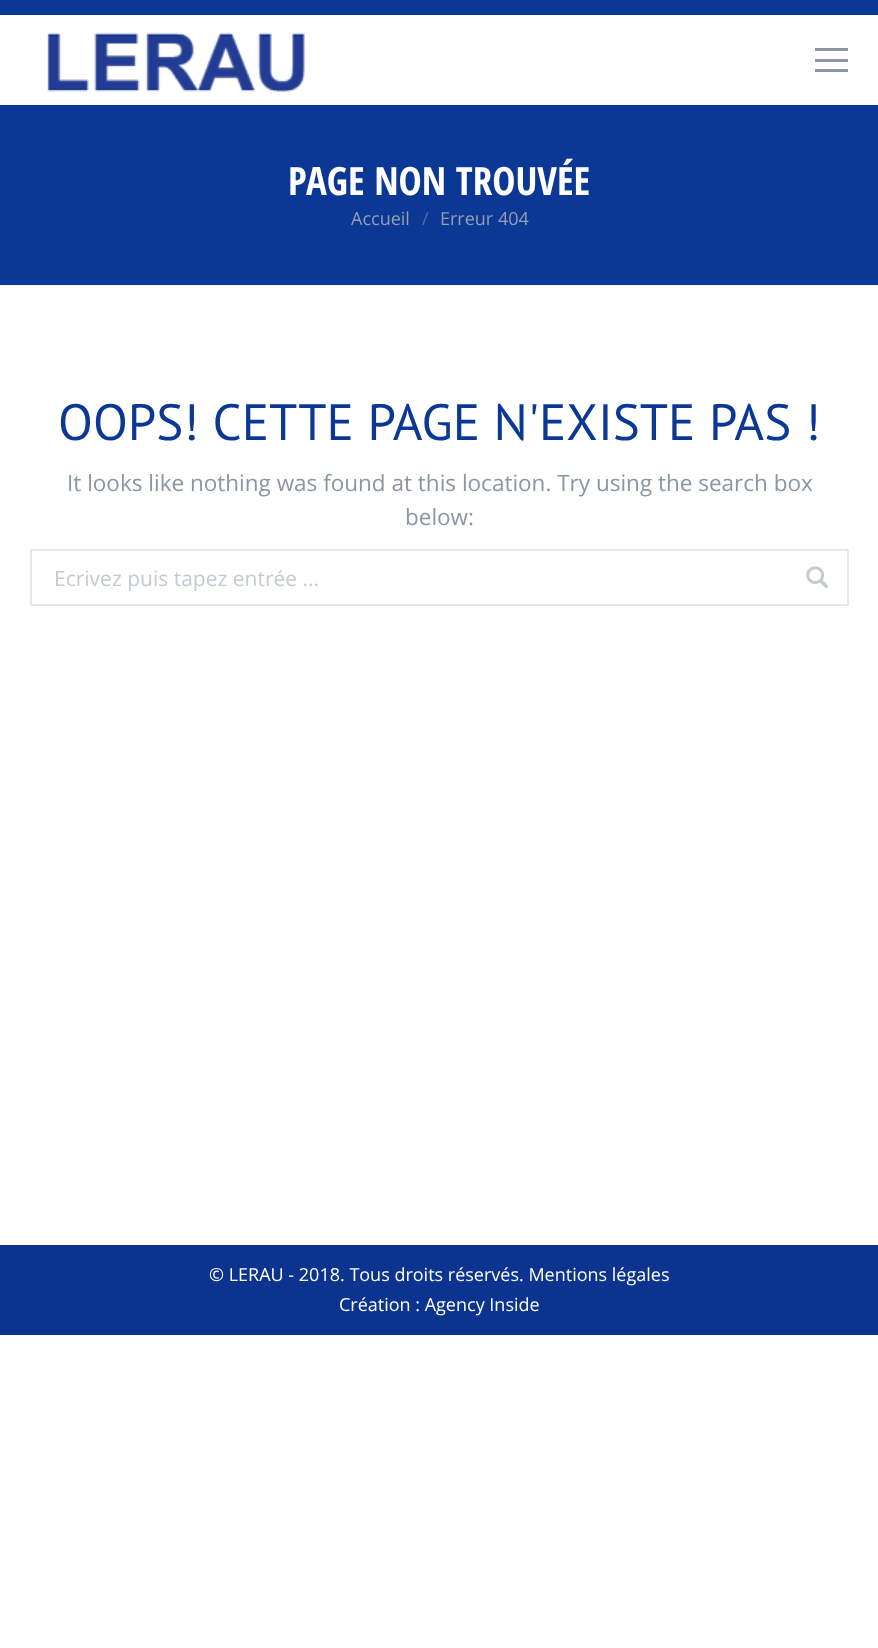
<svg xmlns="http://www.w3.org/2000/svg" width="878" height="1648" viewBox="0 0 878 1648">
  <rect width="100%" height="100%" fill="#fff"/>
  <path d="M0 0h878v15H0z" fill="#0b3894"/>
  <image x="47" y="32" width="258" height="60" href="img/1.png"/>
  <path d="M815 59h33v3H815z" fill="#8c95a2"/>
  <path d="M815 48h33v3H815z" fill="#8c95a2"/>
  <path d="M815 69h33v3H815z" fill="#8c95a2"/>
  <path d="M0 105h878v180H0z" fill="#0b3894"/>
  <rect x="31" y="550" width="817" height="55" rx="0.5" fill="none" stroke="#e7e7e7" stroke-width="2"/>
  <image x="806" y="566" width="23" height="23" href="img/2.png"/>
  <path d="M0 1245h878v90H0z" fill="#0c348e"/>
  <text x="288" y="195" font-family="Open Sans Condensed" font-size="39" font-weight="bold" fill="#fff">PAGE NON TROUVÉE</text>
  <text x="351" y="225" font-family="Open Sans" font-size="18" fill="#949fb2">Accueil</text>
  <text x="422" y="225" font-family="Open Sans" font-size="18" fill="#506ca3">/</text>
  <text x="440" y="225" font-family="Open Sans" font-size="18" fill="#949fb2">Erreur 404</text>
  <text x="58" y="440" font-family="PT Sans" font-size="51" fill="#0b3894">OOPS! CETTE PAGE N'EXISTE PAS !</text>
  <g font-family="Open Sans" font-size="22.5" fill="#8c95a2">
    <text x="67" y="491">It looks like nothing was found at this location. Try using the search box</text>
    <text x="405" y="525">below:</text>
  </g>
  <text x="54" y="586" font-family="Open Sans" font-size="21" fill="#c6cad1">Ecrivez puis tapez entrée ...</text>
  <g font-family="Open Sans" font-size="18" fill="#fff">
    <text x="209" y="1281">© LERAU - 2018. Tous droits réservés. Mentions légales</text>
    <text x="339" y="1311">Création : Agency Inside</text>
  </g>
</svg>
